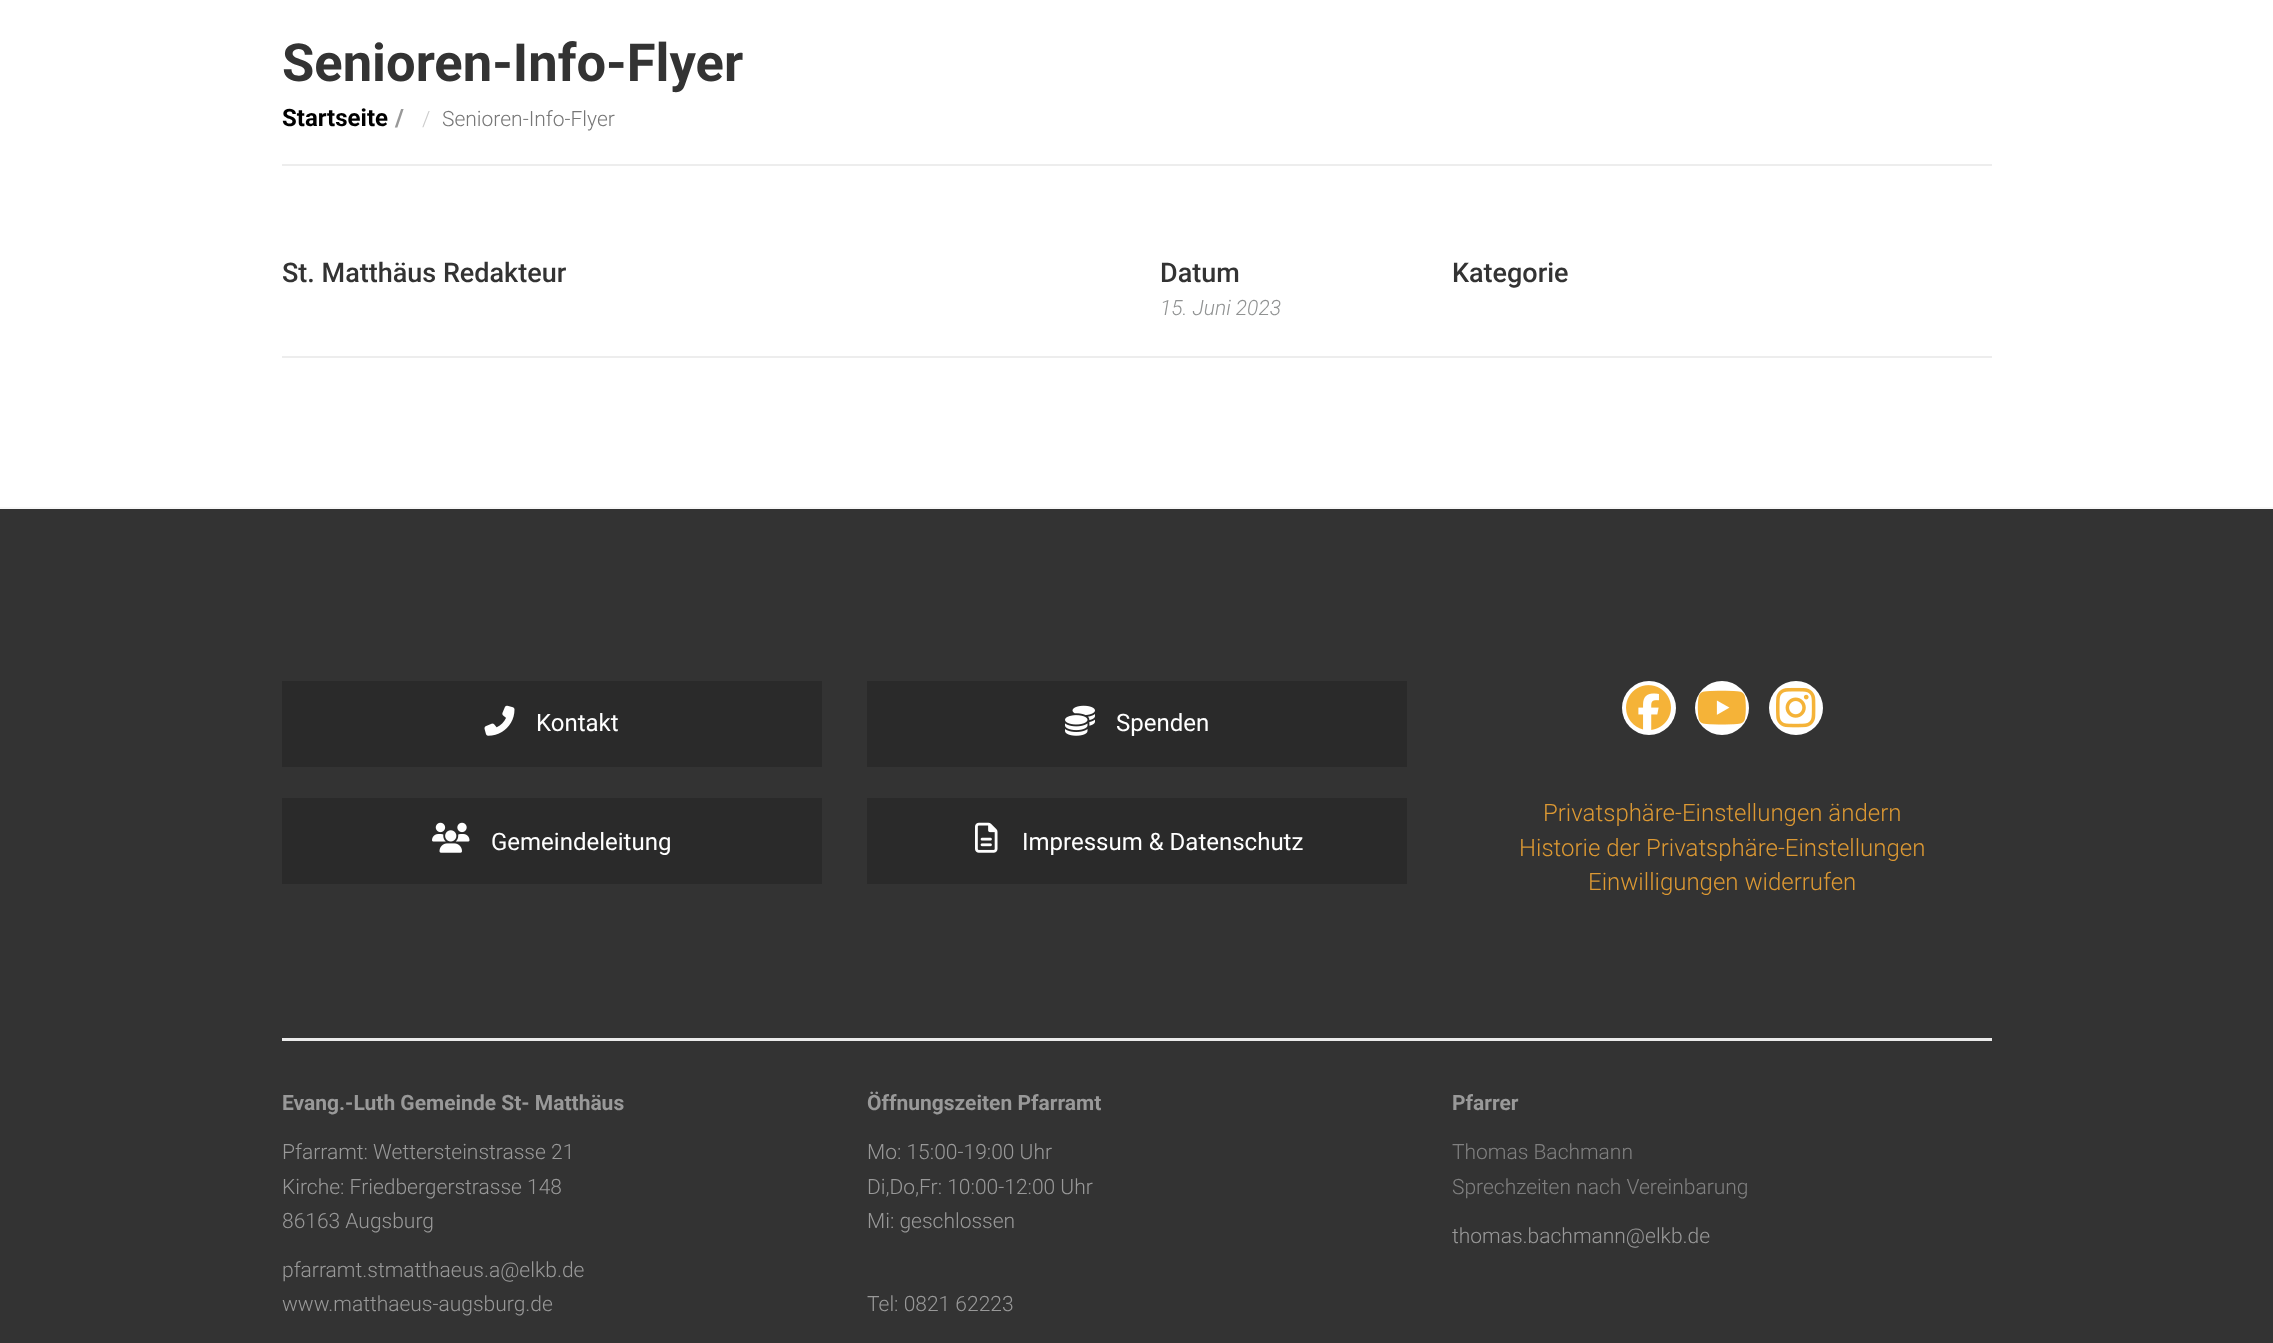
<svg xmlns="http://www.w3.org/2000/svg" width="2273" height="1343" viewBox="0 0 2273 1343">
  <rect width="100%" height="100%" fill="#fff"/>
  <path d="M282 164h1710v2H282z" fill="#ededed"/>
  <path d="M282 356h1710v2H282z" fill="#ededed"/>
  <path d="M0 507h2273v2H0z" fill="#f7f7f7"/>
  <path d="M0 509h2273v834H0z" fill="#333"/>
  <path d="M282 681h540v86H282z" fill="#2a2a2a"/>
  <image x="484" y="705" width="31" height="31" href="img/1.png"/>
  <path d="M282 798h540v86H282z" fill="#2a2a2a"/>
  <image x="432" y="822" width="38" height="31" href="img/2.png"/>
  <path d="M867 681h540v86H867z" fill="#2a2a2a"/>
  <image x="1065" y="705" width="30" height="31" href="img/3.png"/>
  <path d="M867 798h540v86H867z" fill="#2a2a2a"/>
  <image x="975" y="822" width="23" height="31" href="img/4.png"/>
  <circle cx="1649" cy="708" r="27" fill="#fff"/>
  <image x="1626" y="685" width="45" height="45" href="img/5.png"/>
  <circle cx="1722" cy="708" r="27" fill="#fff"/>
  <image x="1697" y="690" width="49" height="35" href="img/6.png"/>
  <circle cx="1796" cy="708" r="27" fill="#fff"/>
  <image x="1776" y="687" width="40" height="41" href="img/7.png"/>
  <path d="M282 1038h1710v3H282z" fill="#ebebeb"/>
  <text x="282" y="81" font-family="Roboto" font-size="52.5" font-weight="bold" fill="#333">Senioren-Info-Flyer</text>
  <text x="282" y="126" font-family="Roboto" font-size="24" font-weight="bold" fill="#000">Startseite</text>
  <text x="395" y="126" font-family="Roboto" font-size="24" font-weight="bold" fill="#999">/</text>
  <text x="422" y="126" font-family="Roboto" font-size="21" font-weight="300" fill="#ccc">/</text>
  <text x="442" y="126" font-family="Roboto" font-size="21" font-weight="300" fill="#777">Senioren-Info-Flyer</text>
  <g font-family="Roboto" font-size="27" font-weight="500" fill="#333">
    <text x="282" y="282">St. Matthäus Redakteur</text>
    <text x="1160" y="282">Datum</text>
  </g>
  <text x="1160" y="315" font-family="Roboto" font-size="21" font-weight="300" font-style="italic" fill="#909292">15. Juni 2023</text>
  <text x="1452" y="282" font-family="Roboto" font-size="27" font-weight="500" fill="#333">Kategorie</text>
  <g font-family="Roboto" font-size="24" fill="#fff">
    <text x="536" y="731">Kontakt</text>
    <text x="491" y="850">Gemeindeleitung</text>
    <text x="1116" y="731">Spenden</text>
    <text x="1022" y="850">Impressum &amp; Datenschutz</text>
  </g>
  <g font-family="Roboto" font-size="24" font-weight="300" fill="#d93">
    <text x="1543" y="821">Privatsphäre-Einstellungen ändern</text>
    <text x="1519" y="856">Historie der Privatsphäre-Einstellungen</text>
    <text x="1588" y="890">Einwilligungen widerrufen</text>
  </g>
  <text x="282" y="1110" font-family="Roboto" font-size="21" font-weight="bold" fill="#999">Evang.-Luth Gemeinde St- Matthäus</text>
  <g font-family="Roboto" font-size="21" font-weight="300" fill="#999">
    <text x="282" y="1159">Pfarramt: Wettersteinstrasse 21</text>
    <text x="282" y="1194">Kirche: Friedbergerstrasse 148</text>
    <text x="282" y="1228">86163 Augsburg</text>
    <text x="282" y="1277">pfarramt.stmatthaeus.a@elkb.de</text>
    <text x="282" y="1311">www.matthaeus-augsburg.de</text>
  </g>
  <text x="867" y="1110" font-family="Roboto" font-size="21" font-weight="bold" fill="#999">Öffnungszeiten Pfarramt</text>
  <g font-family="Roboto" font-size="21" font-weight="300" fill="#999">
    <text x="867" y="1159">Mo: 15:00-19:00 Uhr</text>
    <text x="867" y="1194">Di,Do,Fr: 10:00-12:00 Uhr</text>
    <text x="867" y="1228">Mi: geschlossen</text>
    <text x="867" y="1311">Tel: 0821 62223</text>
  </g>
  <text x="1452" y="1110" font-family="Roboto" font-size="21" font-weight="bold" fill="#999">Pfarrer</text>
  <g font-family="Roboto" font-size="21" font-weight="300" fill="#808080">
    <text x="1452" y="1159">Thomas Bachmann</text>
    <text x="1452" y="1194">Sprechzeiten nach Vereinbarung</text>
  </g>
  <text x="1452" y="1243" font-family="Roboto" font-size="21" font-weight="300" fill="#999">thomas.bachmann@elkb.de</text>
</svg>
